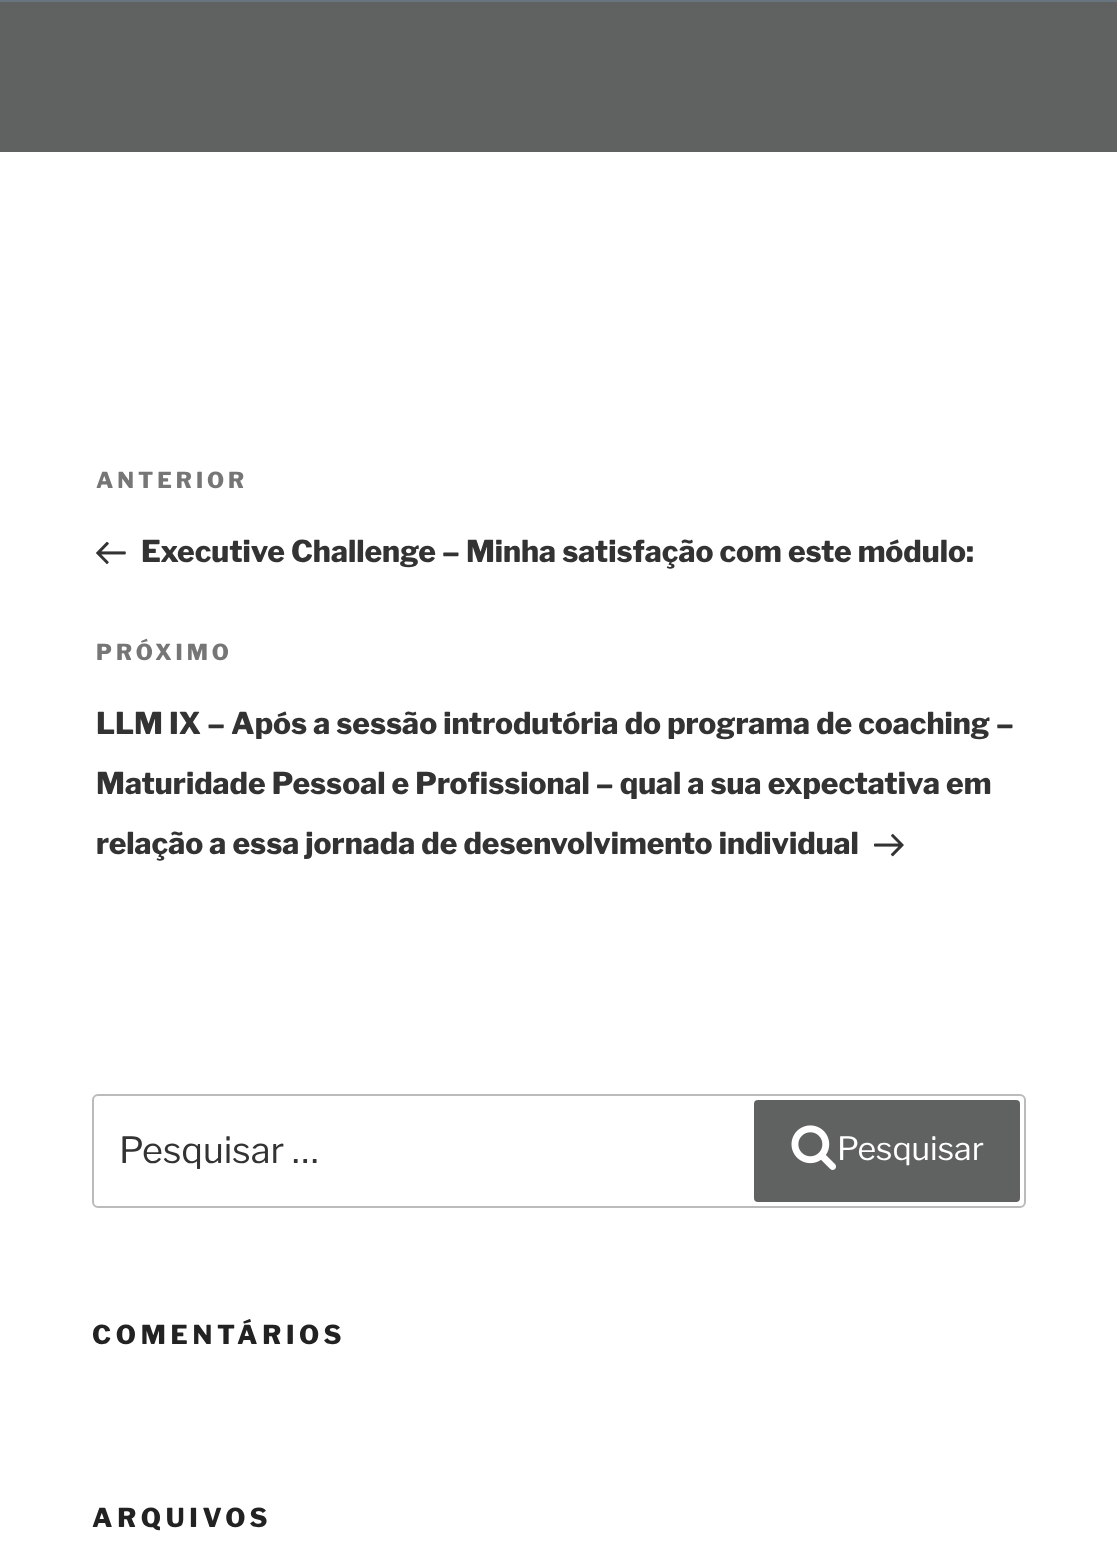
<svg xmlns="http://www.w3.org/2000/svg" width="1117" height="1568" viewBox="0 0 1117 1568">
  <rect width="100%" height="100%" fill="#fff"/>
  <path d="M0 2h1117v150H0z" fill="#606161"/>
  <path d="M0 0h1117v2H0z" fill="#687480"/>
  <image x="96" y="541" width="30" height="24" href="img/1.png"/>
  <image x="874" y="833" width="30" height="24" href="img/2.png"/>
  <rect x="93" y="1095" width="932" height="112" rx="5" fill="none" stroke="#bbb" stroke-width="2"/>
  <rect x="754" y="1100" width="266" height="102" rx="4" fill="#606161"/>
  <image x="791" y="1125" width="46" height="45" href="img/3.png"/>
  <text x="96" y="488" font-family="Libre Franklin" font-size="22" font-weight="800" letter-spacing="4" fill="#767676">ANTERIOR</text>
  <text x="141" y="562" font-family="Libre Franklin" font-size="30" font-weight="800" fill="#333">Executive Challenge – Minha satisfação com este módulo:</text>
  <text x="96" y="660" font-family="Libre Franklin" font-size="22" font-weight="800" letter-spacing="4" fill="#767676">PRÓXIMO</text>
  <g font-family="Libre Franklin" font-size="30" font-weight="800" fill="#333">
    <text x="96" y="734">LLM IX – Após a sessão introdutória do programa de coaching –</text>
    <text x="96" y="794">Maturidade Pessoal e Profissional – qual a sua expectativa em</text>
    <text x="96" y="854">relação a essa jornada de desenvolvimento individual</text>
  </g>
  <text x="119" y="1163" font-family="Libre Franklin" font-size="36" fill="#333">Pesquisar …</text>
  <text x="837" y="1160" font-family="Libre Franklin" font-size="32" fill="#fff">Pesquisar</text>
  <g font-family="Libre Franklin" font-size="26" font-weight="800" letter-spacing="4.75" fill="#222">
    <text x="92" y="1344">COMENTÁRIOS</text>
    <text x="92" y="1527">ARQUIVOS</text>
  </g>
</svg>
